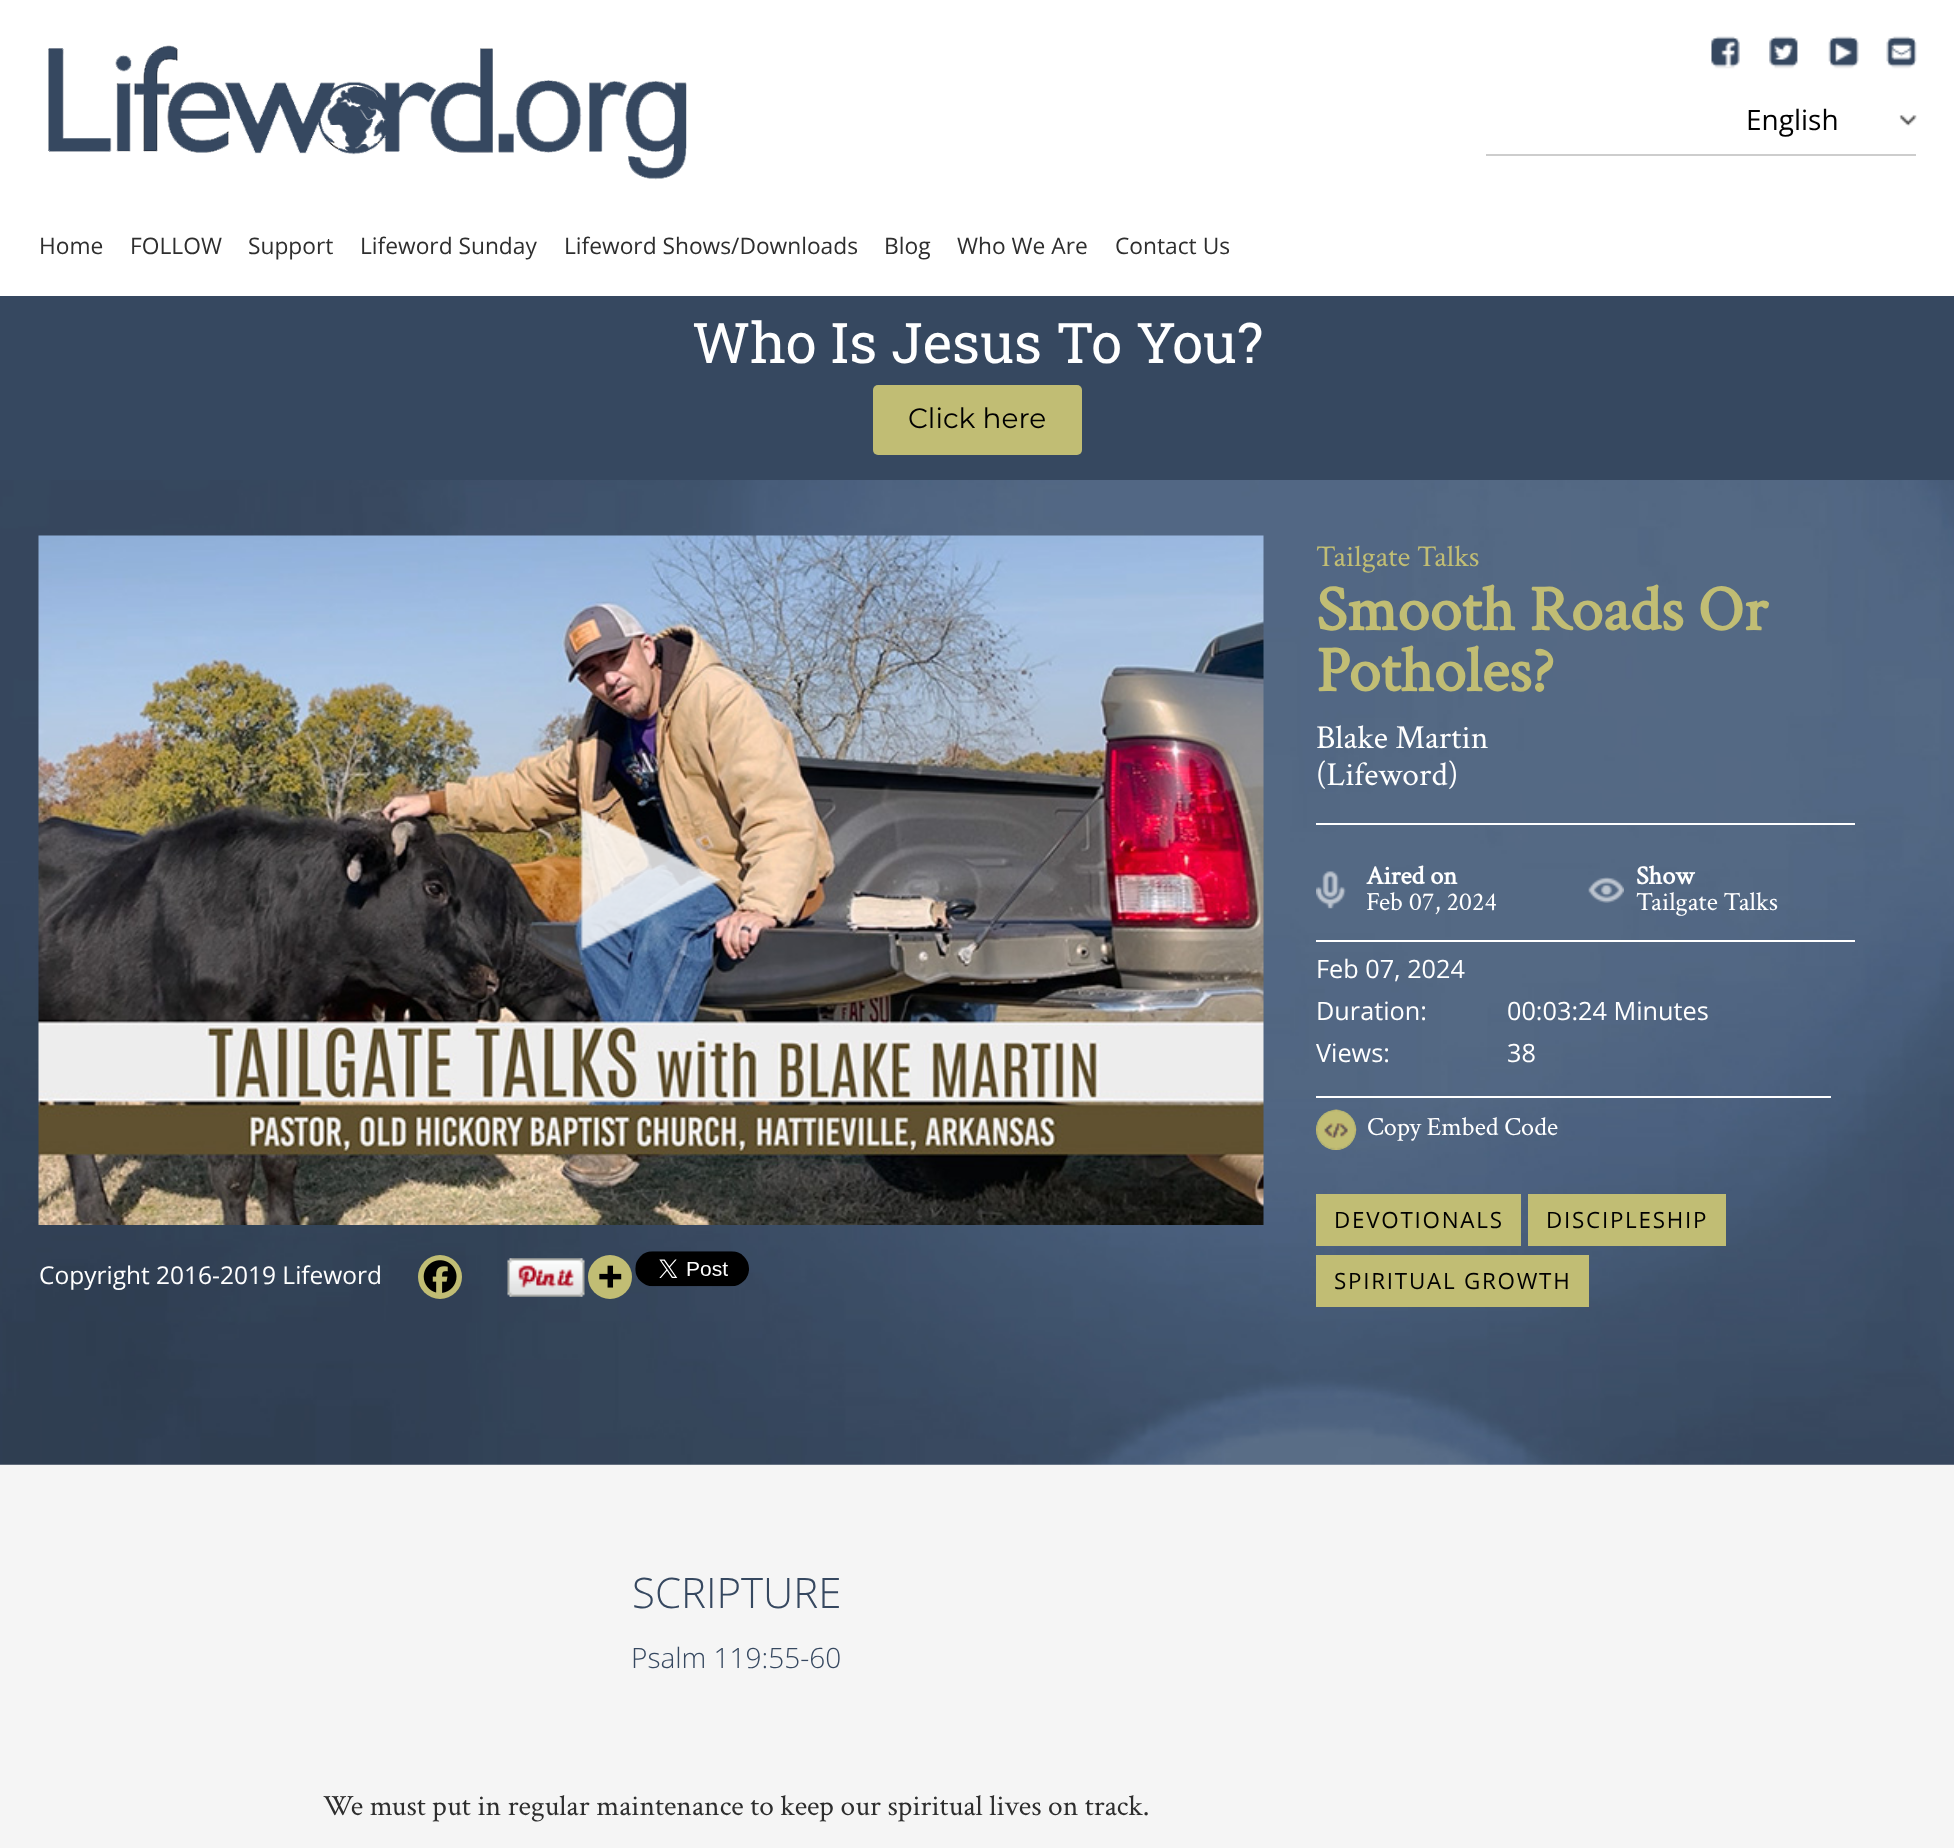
async function draw(canvas) {
	canvas.width = 1954;
	canvas.height = 1848;
	const c = canvas.getContext('2d');
	c.miterLimit = 4;
	c.fontKerning = 'normal';
	async function loadImage(src) {
		const img = new Image();
		img.src = src;
		await img.decode();
		return img;
	}

	c.fillStyle = '#fff';
	c.fillRect(0, 0, 1954, 1848);
	c.drawImage(await loadImage('img1.png'), 1711, 36, 29, 33);
	c.drawImage(await loadImage('img2.png'), 1769, 36, 29, 33);
	c.drawImage(await loadImage('img3.png'), 1828, 36, 31, 33);
	c.drawImage(await loadImage('img4.png'), 1886, 36, 31, 33);
	c.drawImage(await loadImage('img5.png'), 1899, 115, 18, 11);
	c.fillStyle = '#cdcdcd';
	c.fillRect(1486, 154, 430, 2);
	c.font = '28px Open Sans';
	c.fillStyle = '#000';
	c.fillText('English', 1746, 130);
	c.drawImage(await loadImage('img6.png'), 48, 45, 639, 135);
	c.font = '22.75px Open Sans';
	c.fillStyle = '#2e2e2e';
	for (const [text, x, y] of [
		['Home', 39, 254],
		['FOLLOW', 130, 254],
		['Support', 248, 254],
		['Lifeword Sunday', 360, 254],
		['Lifeword Shows/Downloads', 564, 254],
		['Blog', 884, 254],
		['Who We Are', 957, 254],
		['Contact Us', 1115, 254],
	]) {
		c.fillText(text, x, y);
	}
	c.fillStyle = '#364860';
	c.fillRect(0, 296, 1954, 184);
	c.font = '56px Roboto Slab';
	c.fillStyle = '#fff';
	c.fillText('Who Is Jesus To You?', 692, 363);
	c.fillStyle = '#c1bd74';
	c.beginPath();
	c.roundRect(873, 385, 209, 70, 5);
	c.fill();
	c.font = '100 28px Montserrat';
	c.fillStyle = '#000';
	c.fillText('Click here', 908, 428);
	c.fillStyle = '#f5f5f5';
	c.fillRect(0, 1464, 1954, 384);
	c.drawImage(await loadImage('img7.png'), 0, 480, 1954, 985);
	c.drawImage(await loadImage('img8.png'), 38, 535, 1226, 690);
	c.drawImage(await loadImage('img9.png'), 579, 808, 144, 143);
	c.font = '24.5px Open Sans';
	c.fillStyle = '#fff';
	c.fillText('Copyright 2016-2019 Lifeword', 39, 1284);
	c.fillStyle = '#c1bd74';
	c.beginPath();
	c.arc(440, 1277, 22, 0, 2 * Math.PI);
	c.fill();
	c.drawImage(await loadImage('img10.png'), 423, 1260, 34, 33);
	c.drawImage(await loadImage('img11.png'), 507, 1258, 78, 39);
	c.beginPath();
	c.arc(610, 1277, 22, 0, 2 * Math.PI);
	c.fill();
	c.drawImage(await loadImage('img12.png'), 599, 1265, 23, 23);
	c.drawImage(await loadImage('img13.png'), 635, 1251, 114, 36);
	c.font = '30.25px Crimson Text';
	c.fillText('Tailgate Talks', 1316, 566);
	c.font = 'bold 64.5px Crimson Text';
	c.fillText('Smooth Roads Or', 1316, 630);
	c.fillText('Potholes?', 1316, 691);
	c.font = '33.5px Crimson Text';
	c.fillStyle = '#fff';
	c.fillText('Blake Martin', 1316, 748);
	c.fillText('(Lifeword)', 1316, 785);
	c.fillRect(1316, 823, 539, 2);
	c.fillRect(1316, 940, 539, 2);
	c.drawImage(await loadImage('img14.png'), 1316, 871, 30, 38);
	c.font = 'bold 26.25px Crimson Text';
	c.fillText('Aired on', 1366, 884);
	c.font = '26.25px Crimson Text';
	c.fillText('Feb 07, 2024', 1366, 910);
	c.drawImage(await loadImage('img15.png'), 1588, 877, 36, 26);
	c.font = 'bold 26.25px Crimson Text';
	c.fillText('Show', 1636, 884);
	c.font = '26.25px Crimson Text';
	c.fillText('Tailgate Talks', 1636, 910);
	c.font = '25.25px Open Sans';
	for (const [text, x, y] of [
		['Feb 07, 2024', 1316, 978],
		['Duration:', 1316, 1020],
		['00:03:24 Minutes', 1507, 1020],
		['Views:', 1316, 1062],
		['38', 1507, 1062],
	]) {
		c.fillText(text, x, y);
	}
	c.fillRect(1316, 1096, 515, 2);
	c.fillStyle = '#c1bd74';
	c.beginPath();
	c.arc(1336, 1130, 20, 0, 2 * Math.PI);
	c.fill();
	c.drawImage(await loadImage('img16.png'), 1316, 1109, 41, 41);
	c.font = '26.25px Crimson Text';
	c.fillStyle = '#fff';
	c.fillText('Copy Embed Code', 1367, 1135);
	c.fillStyle = '#c1bd74';
	c.fillRect(1316, 1194, 205, 52);
	c.letterSpacing = '1.75px';
	c.font = '22.4px Open Sans';
	c.fillStyle = '#000';
	c.fillText('DEVOTIONALS', 1334, 1228);
	c.fillStyle = '#c1bd74';
	c.fillRect(1528, 1194, 198, 52);
	c.fillStyle = '#000';
	c.fillText('DISCIPLESHIP', 1546, 1228);
	c.fillStyle = '#c1bd74';
	c.fillRect(1316, 1255, 273, 52);
	c.fillStyle = '#000';
	c.fillText('SPIRITUAL GROWTH', 1334, 1289);
	c.letterSpacing = '0px';
	c.font = '300 42px Open Sans';
	c.fillStyle = '#364860';
	c.fillText('SCRIPTURE', 632, 1608);
	c.font = '300 28px Open Sans';
	c.fillText('Psalm 119:55-60', 631, 1668);
	c.font = '29.4px Crimson Text';
	c.fillStyle = '#2e2e2e';
	c.fillText('We must put in regular maintenance to keep our spiritual lives on track.', 323, 1815);
}

draw(document.querySelector('canvas'));
